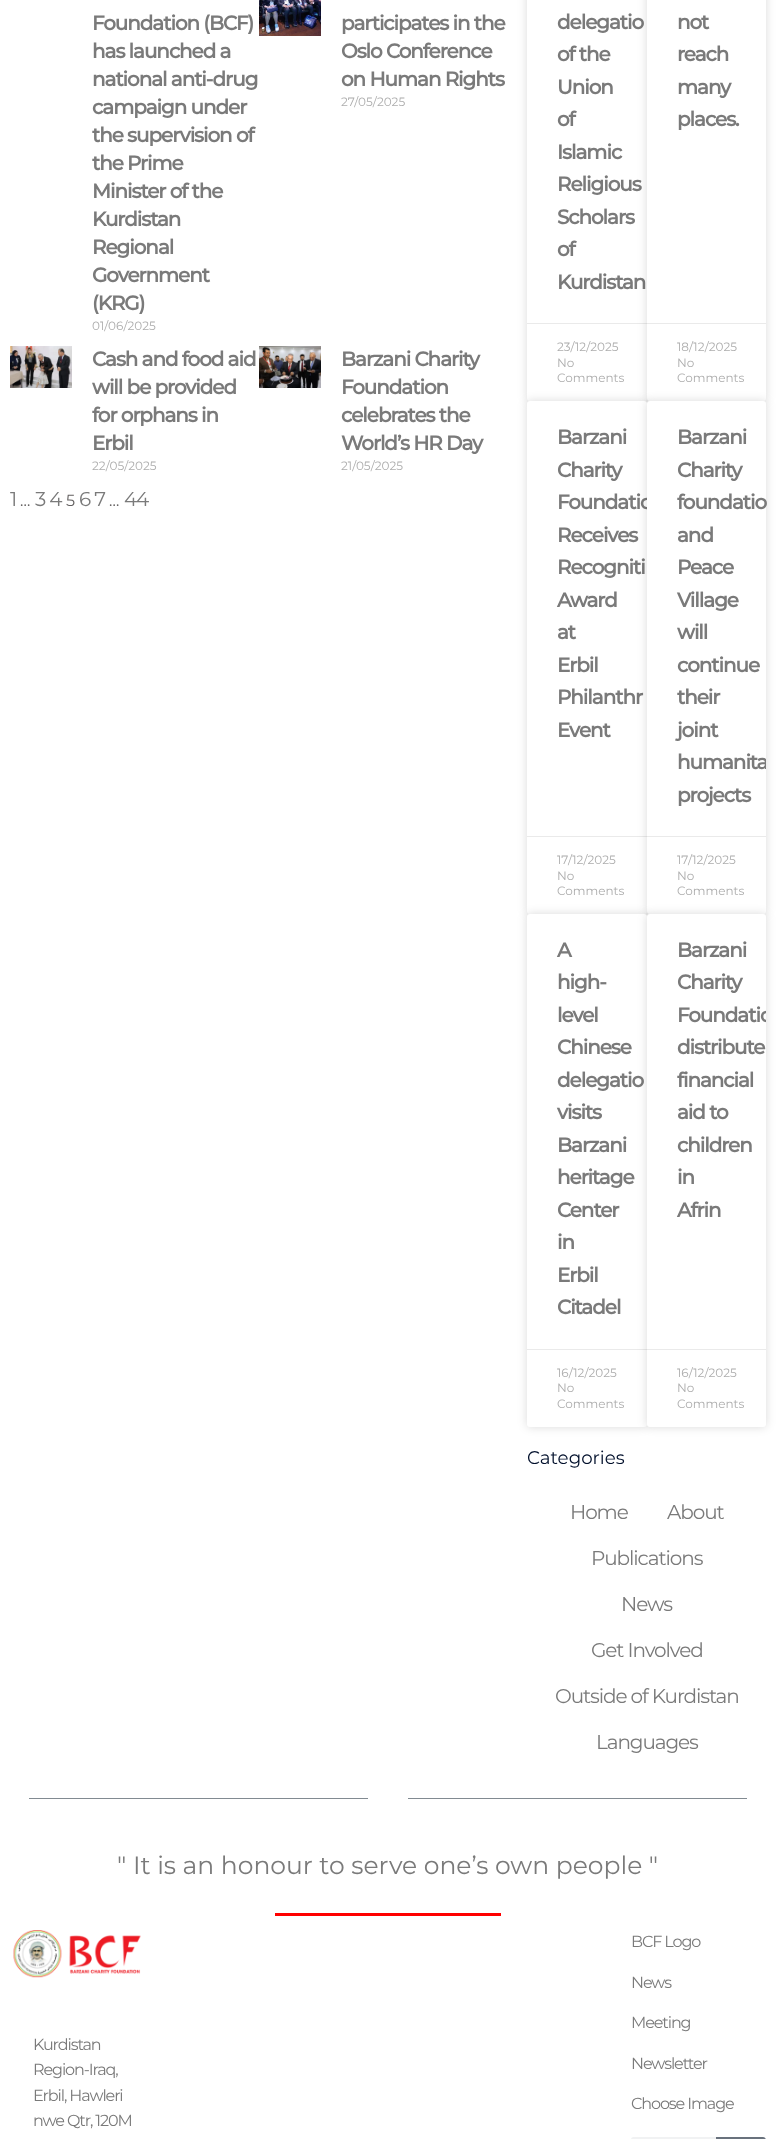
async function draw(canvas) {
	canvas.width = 776;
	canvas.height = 2139;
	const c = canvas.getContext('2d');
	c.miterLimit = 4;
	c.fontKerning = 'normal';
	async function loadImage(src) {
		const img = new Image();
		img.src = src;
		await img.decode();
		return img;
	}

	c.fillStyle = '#fff';
	c.fillRect(0, 0, 776, 2139);
	c.letterSpacing = '-1.1px';
	c.font = 'bold 20px Montserrat';
	c.fillStyle = '#7a7a7a';
	for (const [text, x, y] of [
		['Foundation (BCF)', 92, 30],
		['has launched a', 92, 58],
		['national anti-drug', 92, 86],
		['campaign under', 92, 114],
		['the supervision of', 92, 142],
		['the Prime', 92, 170],
		['Minister of the', 92, 198],
		['Kurdistan', 92, 226],
		['Regional', 92, 254],
		['Government', 92, 282],
		['(KRG)', 92, 310],
	]) {
		c.fillText(text, x, y);
	}
	c.letterSpacing = '0px';
	c.font = '12px Montserrat';
	c.fillStyle = '#adadad';
	c.fillText('01/06/2025', 92, 330);
	c.drawImage(await loadImage('img1.png'), 259, 0, 62, 36);
	c.letterSpacing = '-1.1px';
	c.font = 'bold 20px Montserrat';
	c.fillStyle = '#7a7a7a';
	for (const [text, x, y] of [
		['participates in the', 341, 30],
		['Oslo Conference', 341, 58],
		['on Human Rights', 341, 86],
	]) {
		c.fillText(text, x, y);
	}
	c.letterSpacing = '0px';
	c.font = '12px Montserrat';
	c.fillStyle = '#adadad';
	c.fillText('27/05/2025', 341, 106);
	c.drawImage(await loadImage('img2.png'), 10, 346, 62, 42);
	c.letterSpacing = '-1.1px';
	c.font = 'bold 20px Montserrat';
	c.fillStyle = '#7a7a7a';
	for (const [text, x, y] of [
		['Cash and food aid', 92, 366],
		['will be provided', 92, 394],
		['for orphans in', 92, 422],
		['Erbil', 92, 450],
	]) {
		c.fillText(text, x, y);
	}
	c.letterSpacing = '0px';
	c.font = '12px Montserrat';
	c.fillStyle = '#adadad';
	c.fillText('22/05/2025', 92, 470);
	c.drawImage(await loadImage('img3.png'), 259, 346, 62, 42);
	c.letterSpacing = '-1.1px';
	c.font = 'bold 20px Montserrat';
	c.fillStyle = '#7a7a7a';
	for (const [text, x, y] of [
		['Barzani Charity', 341, 366],
		['Foundation', 341, 394],
		['celebrates the', 341, 422],
		['World’s HR Day', 341, 450],
	]) {
		c.fillText(text, x, y);
	}
	c.letterSpacing = '0px';
	c.font = '12px Montserrat';
	c.fillStyle = '#adadad';
	c.fillText('21/05/2025', 341, 470);
	c.letterSpacing = '-1.1px';
	c.font = '20px Montserrat';
	c.fillStyle = '#7a7a7a';
	c.fillText('1', 10, 506);
	c.letterSpacing = '0px';
	c.font = '16px Montserrat';
	c.fillStyle = '#625f5f';
	c.fillText('…', 20, 506);
	c.letterSpacing = '-1.1px';
	c.font = '20px Montserrat';
	c.fillStyle = '#7a7a7a';
	c.fillText('3 4', 35, 506);
	c.letterSpacing = '0px';
	c.font = '16px Montserrat';
	c.fillStyle = '#625f5f';
	c.fillText('5', 66, 506);
	c.letterSpacing = '-1.1px';
	c.font = '20px Montserrat';
	c.fillStyle = '#7a7a7a';
	c.fillText('6 7', 79, 506);
	c.letterSpacing = '0px';
	c.font = '16px Montserrat';
	c.fillStyle = '#625f5f';
	c.fillText('…', 109, 506);
	c.letterSpacing = '-1.1px';
	c.font = '20px Montserrat';
	c.fillStyle = '#7a7a7a';
	c.fillText('44', 124, 506);
	c.fillStyle = '#00000026';
	c.filter = 'blur(5px)';
	c.beginPath();
	c.roundRect(527, -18, 120, 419, 3);
	c.fill();
	c.filter = 'none';
	c.fillStyle = '#fff';
	c.beginPath();
	c.roundRect(527, -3, 120, 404, 3);
	c.fill();
	c.font = 'bold 20px Montserrat';
	c.fillStyle = '#7a7a7a';
	for (const [text, x, y] of [
		['delegatio', 557, 29],
		['of the', 557, 61],
		['Union', 557, 94],
		['of', 557, 126],
		['Islamic', 557, 159],
		['Religious', 557, 191],
		['Scholars', 557, 224],
		['of', 557, 256],
		['Kurdistan', 557, 289],
	]) {
		c.fillText(text, x, y);
	}
	c.fillStyle = '#eaeaea';
	c.fillRect(527, 323, 120, 1);
	c.letterSpacing = '0px';
	c.font = '12px Montserrat';
	c.fillStyle = '#adadad';
	for (const [text, x, y] of [
		['23/12/2025', 557, 351],
		['No', 557, 367],
		['Comments', 557, 382],
	]) {
		c.fillText(text, x, y);
	}
	c.fillStyle = '#00000026';
	c.filter = 'blur(5px)';
	c.beginPath();
	c.roundRect(647, -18, 119, 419, 3);
	c.fill();
	c.filter = 'none';
	c.fillStyle = '#fff';
	c.beginPath();
	c.roundRect(647, -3, 119, 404, 3);
	c.fill();
	c.letterSpacing = '-1.1px';
	c.font = 'bold 20px Montserrat';
	c.fillStyle = '#7a7a7a';
	for (const [text, x, y] of [
		['not', 677, 29],
		['reach', 677, 61],
		['many', 677, 94],
		['places.', 677, 126],
	]) {
		c.fillText(text, x, y);
	}
	c.fillStyle = '#eaeaea';
	c.fillRect(647, 323, 119, 1);
	c.letterSpacing = '0px';
	c.font = '12px Montserrat';
	c.fillStyle = '#adadad';
	for (const [text, x, y] of [
		['18/12/2025', 677, 351],
		['No', 677, 367],
		['Comments', 677, 382],
	]) {
		c.fillText(text, x, y);
	}
	c.fillStyle = '#00000026';
	c.filter = 'blur(5px)';
	c.beginPath();
	c.roundRect(527, 401, 120, 513, 3);
	c.fill();
	c.filter = 'none';
	c.fillStyle = '#fff';
	c.beginPath();
	c.roundRect(527, 401, 120, 513, 3);
	c.fill();
	c.letterSpacing = '-1.1px';
	c.font = 'bold 20px Montserrat';
	c.fillStyle = '#7a7a7a';
	for (const [text, x, y] of [
		['Barzani', 557, 444],
		['Charity', 557, 477],
		['Foundatio', 557, 509],
		['Receives', 557, 542],
		['Recogniti', 557, 574],
		['Award', 557, 607],
		['at', 557, 639],
		['Erbil', 557, 672],
		['Philanthr', 557, 704],
		['Event', 557, 737],
	]) {
		c.fillText(text, x, y);
	}
	c.fillStyle = '#eaeaea';
	c.fillRect(527, 836, 120, 1);
	c.letterSpacing = '0px';
	c.font = '12px Montserrat';
	c.fillStyle = '#adadad';
	for (const [text, x, y] of [
		['17/12/2025', 557, 864],
		['No', 557, 880],
		['Comments', 557, 895],
	]) {
		c.fillText(text, x, y);
	}
	c.fillStyle = '#00000026';
	c.filter = 'blur(5px)';
	c.beginPath();
	c.roundRect(647, 401, 119, 513, 3);
	c.fill();
	c.filter = 'none';
	c.fillStyle = '#fff';
	c.beginPath();
	c.roundRect(647, 401, 119, 513, 3);
	c.fill();
	c.letterSpacing = '-1.1px';
	c.font = 'bold 20px Montserrat';
	c.fillStyle = '#7a7a7a';
	for (const [text, x, y] of [
		['Barzani', 677, 444],
		['Charity', 677, 477],
		['foundatio', 677, 509],
		['and', 677, 542],
		['Peace', 677, 574],
		['Village', 677, 607],
		['will', 677, 639],
		['continue', 677, 672],
		['their', 677, 704],
		['joint', 677, 737],
	]) {
		c.fillText(text, x, y);
	}
	c.save();
	c.beginPath();
	c.roundRect(647, 401, 119, 513, 3);
	c.clip();
	c.fillText('humanita', 677, 769);
	c.restore();
	c.fillText('projects', 677, 802);
	c.fillStyle = '#eaeaea';
	c.fillRect(647, 836, 119, 1);
	c.letterSpacing = '0px';
	c.font = '12px Montserrat';
	c.fillStyle = '#adadad';
	for (const [text, x, y] of [
		['17/12/2025', 677, 864],
		['No', 677, 880],
		['Comments', 677, 895],
	]) {
		c.fillText(text, x, y);
	}
	c.fillStyle = '#00000026';
	c.filter = 'blur(5px)';
	c.beginPath();
	c.roundRect(527, 914, 120, 513, 3);
	c.fill();
	c.filter = 'none';
	c.fillStyle = '#fff';
	c.beginPath();
	c.roundRect(527, 914, 120, 513, 3);
	c.fill();
	c.letterSpacing = '-1.1px';
	c.font = 'bold 20px Montserrat';
	c.fillStyle = '#7a7a7a';
	for (const [text, x, y] of [
		['A', 557, 957],
		['high-', 557, 989],
		['level', 557, 1022],
		['Chinese', 557, 1054],
		['delegatio', 557, 1087],
		['visits', 557, 1119],
		['Barzani', 557, 1152],
		['heritage', 557, 1184],
		['Center', 557, 1217],
		['in', 557, 1249],
		['Erbil', 557, 1282],
		['Citadel', 557, 1314],
	]) {
		c.fillText(text, x, y);
	}
	c.fillStyle = '#eaeaea';
	c.fillRect(527, 1349, 120, 1);
	c.letterSpacing = '0px';
	c.font = '12px Montserrat';
	c.fillStyle = '#adadad';
	for (const [text, x, y] of [
		['16/12/2025', 557, 1377],
		['No', 557, 1392],
		['Comments', 557, 1408],
	]) {
		c.fillText(text, x, y);
	}
	c.fillStyle = '#00000026';
	c.filter = 'blur(5px)';
	c.beginPath();
	c.roundRect(647, 914, 119, 513, 3);
	c.fill();
	c.filter = 'none';
	c.fillStyle = '#fff';
	c.beginPath();
	c.roundRect(647, 914, 119, 513, 3);
	c.fill();
	c.letterSpacing = '-1.1px';
	c.font = 'bold 20px Montserrat';
	c.fillStyle = '#7a7a7a';
	c.fillText('Barzani', 677, 957);
	c.fillText('Charity', 677, 989);
	c.save();
	c.beginPath();
	c.roundRect(647, 914, 119, 513, 3);
	c.clip();
	c.fillText('Foundatio', 677, 1022);
	c.restore();
	for (const [text, x, y] of [
		['distribute', 677, 1054],
		['financial', 677, 1087],
		['aid to', 677, 1119],
		['children', 677, 1152],
		['in', 677, 1184],
		['Afrin', 677, 1217],
	]) {
		c.fillText(text, x, y);
	}
	c.fillStyle = '#eaeaea';
	c.fillRect(647, 1349, 119, 1);
	c.letterSpacing = '0px';
	c.font = '12px Montserrat';
	c.fillStyle = '#adadad';
	for (const [text, x, y] of [
		['16/12/2025', 677, 1377],
		['No', 677, 1392],
		['Comments', 677, 1408],
	]) {
		c.fillText(text, x, y);
	}
	c.font = '18.25px Montserrat';
	c.fillStyle = '#000f2b';
	c.fillText('Categories', 527, 1464);
	c.letterSpacing = '-1.1px';
	c.font = '20px Montserrat';
	c.fillStyle = '#7a7a7a';
	for (const [text, x, y] of [
		['Home', 570, 1519],
		['About', 667, 1519],
		['Publications', 591, 1565],
		['News', 621, 1611],
		['Get Involved', 591, 1657],
		['Outside of Kurdistan', 555, 1703],
		['Languages', 596, 1749],
	]) {
		c.fillText(text, x, y);
	}
	c.fillStyle = '#818a91';
	c.fillRect(29, 1798, 339, 1);
	c.fillRect(408, 1798, 339, 1);
	c.letterSpacing = '0px';
	c.font = '25px Montserrat';
	c.fillStyle = '#7a7a7a';
	c.fillText('" It is an honour to serve one’s own people "', 117, 1874);
	c.fillStyle = '#f00';
	c.fillRect(275, 1913, 226, 3);
	c.drawImage(await loadImage('img4.png'), 13, 1930, 128, 48);
	c.letterSpacing = '-1.1px';
	c.font = '16px Montserrat';
	c.fillStyle = '#7a7a7a';
	for (const [text, x, y] of [
		['Kurdistan', 33, 2050],
		['Region-Iraq,', 33, 2075],
		['Erbil, Hawleri', 33, 2101],
		['nwe Qtr, 120M', 33, 2126],
		['BCF Logo', 631, 1947],
		['News', 631, 1988],
		['Meeting', 631, 2028],
		['Newsletter', 631, 2069],
		['Choose Image', 631, 2109],
	]) {
		c.fillText(text, x, y);
	}
	c.fillStyle = '#f1f2f3';
	c.beginPath();
	c.roundRect(631, 2137, 135, 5, 3);
	c.fill();
	c.fillStyle = '#69727d';
	c.beginPath();
	c.moveTo(716, 2137);
	c.lineTo(763, 2137);
	c.bezierCurveTo(764.5, 2137, 766, 2138.5, 766, 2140);
	c.lineTo(766, 2139);
	c.bezierCurveTo(766, 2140.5, 764.5, 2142, 763, 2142);
	c.lineTo(716, 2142);
	c.closePath();
	c.fill();
}

draw(document.querySelector('canvas'));
